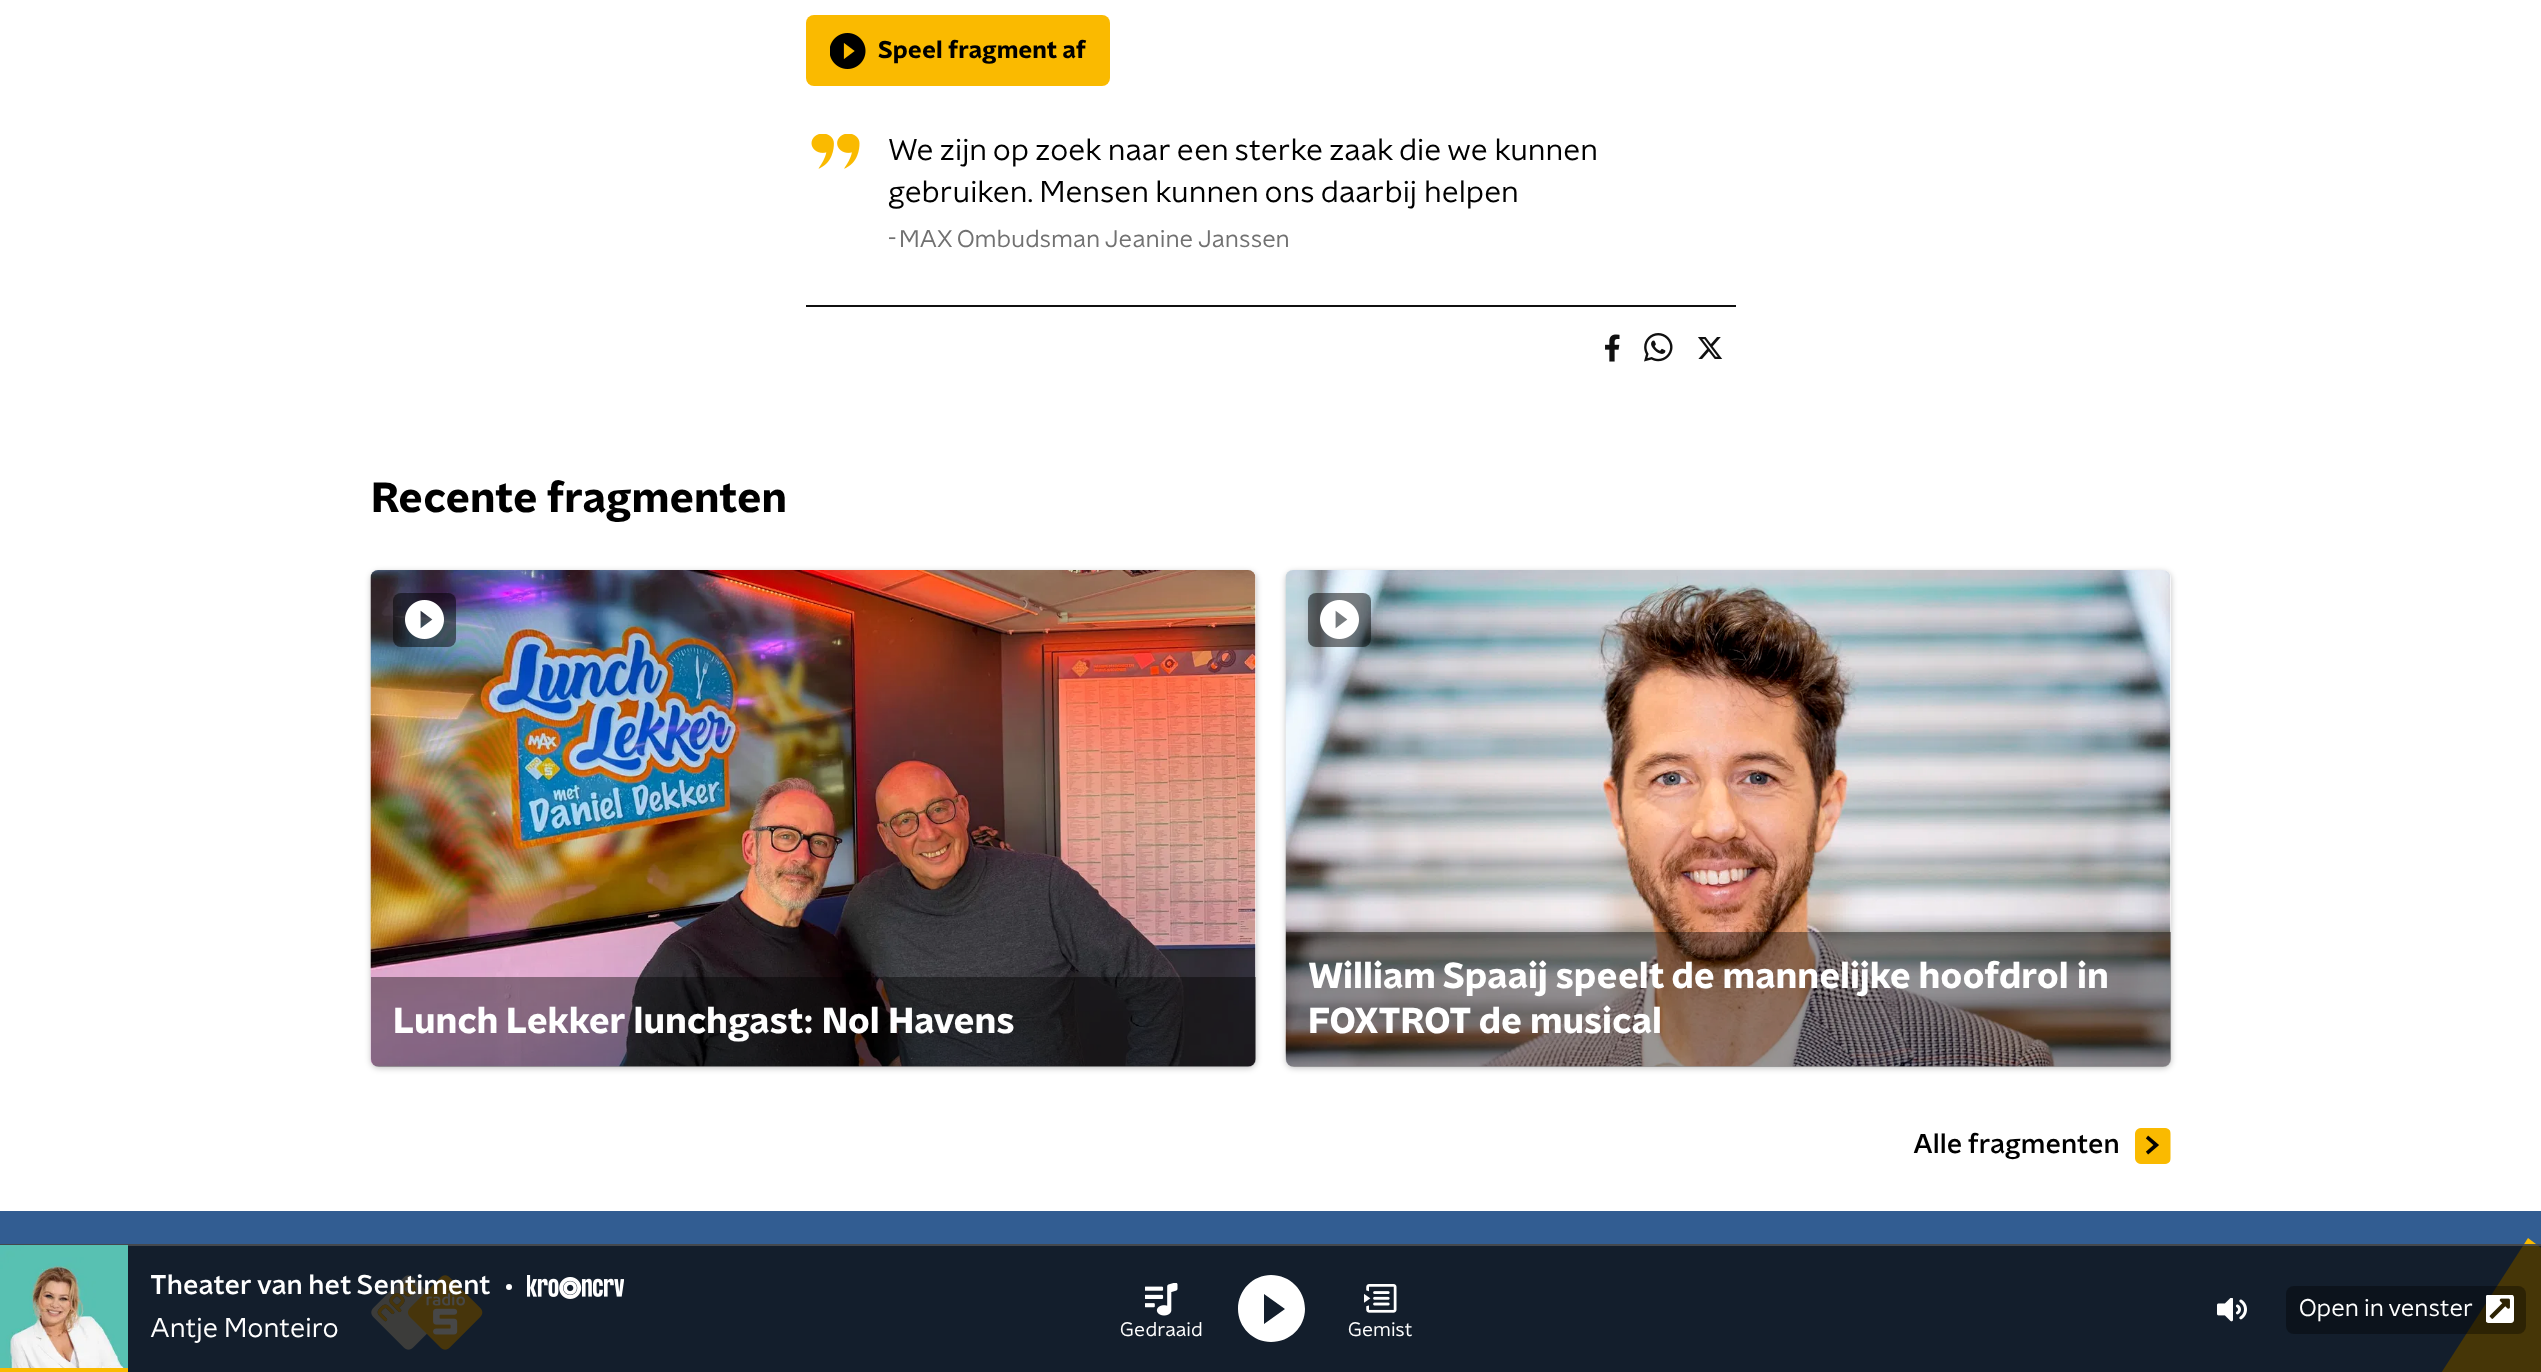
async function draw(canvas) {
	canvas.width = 2541;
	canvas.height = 1372;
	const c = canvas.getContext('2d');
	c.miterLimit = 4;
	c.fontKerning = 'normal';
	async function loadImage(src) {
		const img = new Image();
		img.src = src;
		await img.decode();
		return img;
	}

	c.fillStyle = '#fff';
	c.fillRect(0, 0, 2541, 1372);
	c.fillStyle = '#faba00';
	c.beginPath();
	c.roundRect(806, 15, 304, 71, 8);
	c.fill();
	c.drawImage(await loadImage('img1.png'), 830, 33, 36, 36);
	c.font = 'bold 24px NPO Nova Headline';
	c.fillStyle = '#000';
	c.fillText('Speel fragment af', 878, 58);
	c.drawImage(await loadImage('img2.png'), 811, 134, 49, 35);
	c.font = '30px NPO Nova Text';
	c.fillText('We zijn op zoek naar een sterke zaak die we kunnen', 888, 160);
	c.fillText('gebruiken. Mensen kunnen ons daarbij helpen', 888, 202);
	c.font = '24px NPO Nova Text';
	c.fillStyle = '#717171';
	c.fillText('-', 888, 247);
	c.fillText('MAX Ombudsman Jeanine Janssen', 899, 247);
	c.fillStyle = '#101010';
	c.fillRect(806, 305, 930, 2);
	c.drawImage(await loadImage('img3.png'), 1605, 334, 15, 28);
	c.drawImage(await loadImage('img4.png'), 1644, 333, 29, 29);
	c.drawImage(await loadImage('img5.png'), 1698, 337, 25, 22);
	c.font = 'bold 42px NPO Nova Headline';
	c.fillStyle = '#000';
	c.fillText('Recente fragmenten', 371, 512);
	c.fillStyle = '#00000040';
	c.filter = 'blur(3px)';
	c.beginPath();
	c.roundRect(371, 572, 885, 496, 8);
	c.fill();
	c.filter = 'none';
	c.fillStyle = '#fff';
	c.beginPath();
	c.roundRect(371, 570, 885, 497, 8);
	c.fill();
	c.drawImage(await loadImage('img6.png'), 370, 570, 886, 497);
	c.fillStyle = '#00000080';
	c.beginPath();
	c.roundRect(393, 593, 63, 54, 8);
	c.fill();
	c.drawImage(await loadImage('img7.png'), 405, 600, 39, 39);
	c.fillStyle = '#00000066';
	c.beginPath();
	c.roundRect(371, 977, 885, 90, [0, 0, 8, 8]);
	c.fill();
	c.font = 'bold 36px NPO Nova Headline';
	c.fillStyle = '#fff';
	c.fillText('Lunch Lekker lunchgast: Nol Havens', 393, 1033);
	c.fillStyle = '#00000040';
	c.filter = 'blur(3px)';
	c.beginPath();
	c.roundRect(1286, 572, 885, 496, 8);
	c.fill();
	c.filter = 'none';
	c.fillStyle = '#fff';
	c.beginPath();
	c.roundRect(1286, 570, 885, 497, 8);
	c.fill();
	c.drawImage(await loadImage('img8.png'), 1285, 570, 886, 497);
	c.fillStyle = '#00000080';
	c.beginPath();
	c.roundRect(1308, 593, 63, 54, 8);
	c.fill();
	c.drawImage(await loadImage('img9.png'), 1320, 600, 39, 39);
	c.fillStyle = '#00000066';
	c.beginPath();
	c.roundRect(1286, 932, 885, 135, [0, 0, 8, 8]);
	c.fill();
	c.wordSpacing = '-0.25px';
	c.fillStyle = '#fff';
	c.fillText('William Spaaij speelt de mannelijke hoofdrol in', 1308, 988);
	c.wordSpacing = '0px';
	c.fillText('FOXTROT de musical', 1308, 1033);
	c.font = '500 27px NPO Nova Text';
	c.fillStyle = '#000';
	c.fillText('Alle fragmenten', 1913, 1153);
	c.drawImage(await loadImage('img10.png'), 2135, 1128, 36, 36);
	c.fillStyle = '#325d92';
	c.fillRect(0, 1211, 2541, 161);
	c.drawImage(await loadImage('img11.png'), 371, 1275, 112, 75);
	c.fillStyle = '#faba00';
	c.beginPath();
	c.moveTo(2084, 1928);
	c.lineTo(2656, 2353);
	c.lineTo(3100, 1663);
	c.lineTo(2528, 1238);
	c.closePath();
	c.fill();
	c.fillStyle = '#090909bf';
	c.fillRect(0, 1244, 2541, 128);
	c.fillStyle = '#5f5f5fa6';
	c.fillRect(0, 1244, 2541, 2);
	c.drawImage(await loadImage('img12.png'), 0, 1245, 128, 123);
	c.fillStyle = '#faba00';
	c.fillRect(0, 1368, 128, 4);
	c.fillStyle = '#fff';
	c.fillText('Theater van het Sentiment', 150, 1294);
	c.beginPath();
	c.arc(509, 1287, 3, 0, 2 * Math.PI);
	c.fill();
	c.drawImage(await loadImage('img13.png'), 527, 1275, 97, 24);
	c.font = '27px NPO Nova Text';
	c.fillText('Antje Monteiro', 150, 1337);
	c.drawImage(await loadImage('img14.png'), 2217, 1298, 30, 24);
	c.fillStyle = '#00000059';
	c.beginPath();
	c.roundRect(2286, 1286, 240, 48, 8);
	c.fill();
	c.font = '24px NPO Nova Text';
	c.fillStyle = '#fff';
	c.fillText('Open in venster', 2299, 1316);
	c.drawImage(await loadImage('img15.png'), 2486, 1295, 28, 28);
	c.drawImage(await loadImage('img16.png'), 1145, 1283, 33, 33);
	c.font = '19.5px NPO Nova Text';
	c.fillText('Gedraaid', 1120, 1336);
	c.beginPath();
	c.moveTo(1271, 1275);
	c.bezierCurveTo(1253, 1275, 1238, 1290, 1238, 1309);
	c.bezierCurveTo(1238, 1327, 1253, 1342, 1271, 1342);
	c.bezierCurveTo(1290, 1342, 1305, 1327, 1305, 1309);
	c.bezierCurveTo(1305, 1290, 1290, 1275, 1271, 1275);
	c.closePath();
	c.moveTo(1264, 1324);
	c.lineTo(1264, 1294);
	c.lineTo(1285, 1309);
	c.closePath();
	c.fill();
	c.drawImage(await loadImage('img17.png'), 1364, 1284, 33, 29);
	c.fillText('Gemist', 1348, 1336);
}

draw(document.querySelector('canvas'));
